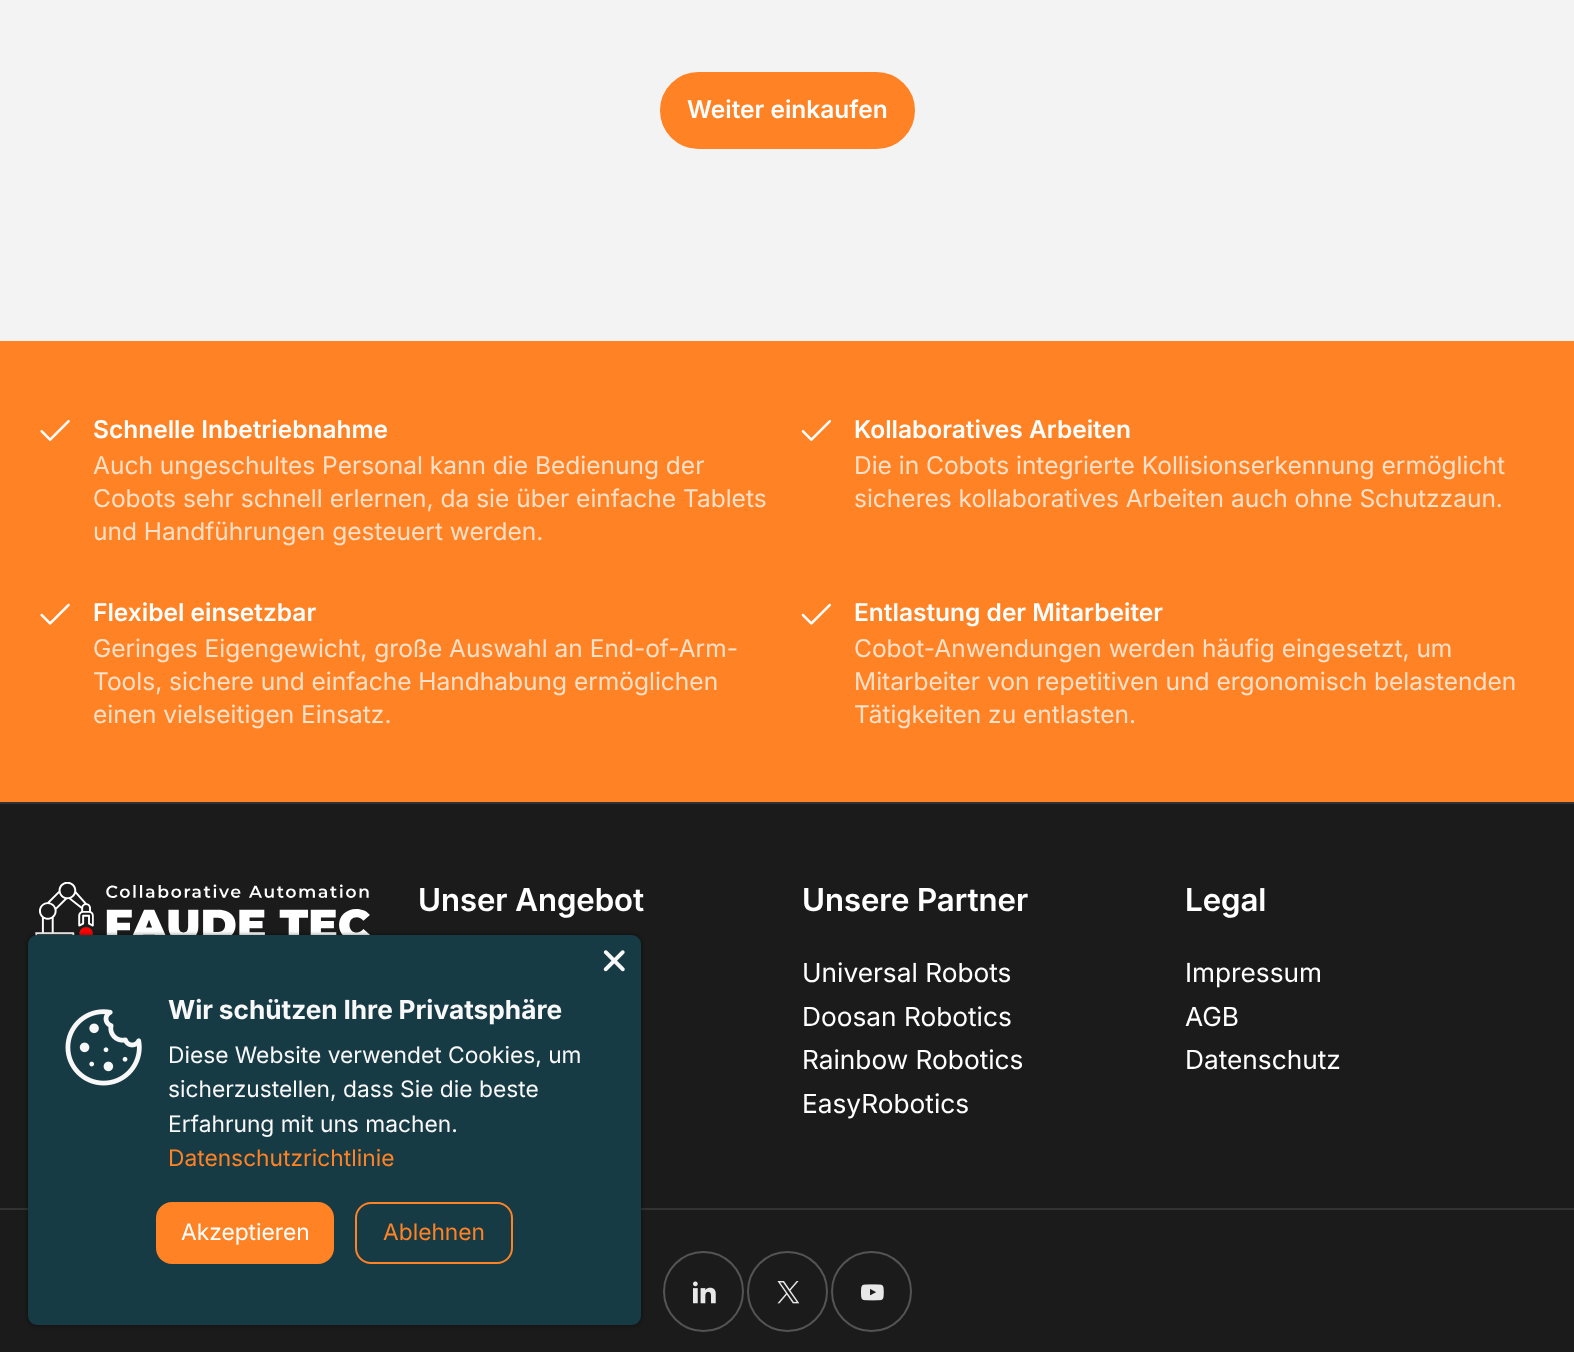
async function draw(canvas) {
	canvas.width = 1574;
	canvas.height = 1352;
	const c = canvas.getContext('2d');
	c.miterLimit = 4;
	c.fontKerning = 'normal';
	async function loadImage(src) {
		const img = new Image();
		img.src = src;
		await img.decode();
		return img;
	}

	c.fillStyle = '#f3f3f3';
	c.fillRect(0, 0, 1574, 1352);
	c.fillStyle = '#ff8225';
	c.beginPath();
	c.roundRect(661, 73, 253, 75, 37.5);
	c.fill();
	c.strokeStyle = '#ff8225';
	c.lineWidth = 2;
	c.stroke();
	c.font = '600 24.5px Inter';
	c.fillStyle = '#fff';
	c.fillText('Weiter einkaufen', 687, 118);
	c.fillStyle = '#ff8225';
	c.fillRect(0, 341, 1574, 461);
	c.drawImage(await loadImage('img1.png'), 40, 420, 30, 21);
	c.fillStyle = '#fff';
	c.fillText('Schnelle Inbetriebnahme', 93, 438);
	c.font = '24.5px Inter';
	c.fillStyle = '#ffe0c9';
	for (const [text, x, y] of [
		['Auch ungeschultes Personal kann die Bedienung der', 93, 474],
		['Cobots sehr schnell erlernen, da sie über einfache Tablets', 93, 507],
		['und Handführungen gesteuert werden.', 93, 540],
	]) {
		c.fillText(text, x, y);
	}
	c.drawImage(await loadImage('img2.png'), 801, 420, 30, 21);
	c.font = '600 24.5px Inter';
	c.fillStyle = '#fff';
	c.fillText('Kollaboratives Arbeiten', 854, 438);
	c.font = '24.5px Inter';
	c.fillStyle = '#ffe0c9';
	c.fillText('Die in Cobots integrierte Kollisionserkennung ermöglicht', 854, 474);
	c.fillText('sicheres kollaboratives Arbeiten auch ohne Schutzzaun.', 854, 507);
	c.drawImage(await loadImage('img3.png'), 40, 603, 30, 22);
	c.font = '600 24.5px Inter';
	c.fillStyle = '#fff';
	c.fillText('Flexibel einsetzbar', 93, 621);
	c.font = '24.5px Inter';
	c.fillStyle = '#ffe0c9';
	for (const [text, x, y] of [
		['Geringes Eigengewicht, große Auswahl an End-of-Arm-', 93, 657],
		['Tools, sichere und einfache Handhabung ermöglichen', 93, 690],
		['einen vielseitigen Einsatz.', 93, 723],
	]) {
		c.fillText(text, x, y);
	}
	c.drawImage(await loadImage('img4.png'), 801, 603, 30, 22);
	c.font = '600 24.5px Inter';
	c.fillStyle = '#fff';
	c.fillText('Entlastung der Mitarbeiter', 854, 621);
	c.font = '24.5px Inter';
	c.fillStyle = '#ffe0c9';
	for (const [text, x, y] of [
		['Cobot-Anwendungen werden häufig eingesetzt, um', 854, 657],
		['Mitarbeiter von repetitiven und ergonomisch belastenden', 854, 690],
		['Tätigkeiten zu entlasten.', 854, 723],
	]) {
		c.fillText(text, x, y);
	}
	c.fillStyle = '#1b1b1b';
	c.fillRect(0, 804, 1574, 404);
	c.fillStyle = '#323232';
	c.fillRect(0, 802, 1574, 2);
	c.drawImage(await loadImage('img5.png'), 35, 882, 335, 54);
	c.font = '600 31.5px "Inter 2"';
	c.fillStyle = '#fff';
	c.fillText('Unser Angebot', 418, 911);
	c.fillText('Unsere Partner', 802, 911);
	c.font = '26.25px Inter';
	for (const [text, x, y] of [
		['Universal Robots', 802, 982],
		['Doosan Robotics', 802, 1026],
		['Rainbow Robotics', 802, 1069],
		['EasyRobotics', 802, 1113],
	]) {
		c.fillText(text, x, y);
	}
	c.font = '600 31.5px "Inter 2"';
	c.fillText('Legal', 1185, 911);
	c.font = '26.25px Inter';
	for (const [text, x, y] of [
		['Impressum', 1185, 982],
		['AGB', 1185, 1026],
		['Datenschutz', 1185, 1069],
	]) {
		c.fillText(text, x, y);
	}
	c.fillStyle = '#1b1b1b';
	c.fillRect(0, 1210, 1574, 142);
	c.fillStyle = '#323232';
	c.fillRect(0, 1208, 1574, 2);
	c.beginPath();
	c.arc(703.5, 1291.5, 39.5, 0, 2 * Math.PI);
	c.strokeStyle = '#545454';
	c.stroke();
	c.drawImage(await loadImage('img6.png'), 693, 1281, 23, 23);
	c.beginPath();
	c.arc(787.5, 1291.5, 39.5, 0, 2 * Math.PI);
	c.stroke();
	c.drawImage(await loadImage('img7.png'), 777, 1281, 23, 23);
	c.beginPath();
	c.arc(871.5, 1291.5, 39.5, 0, 2 * Math.PI);
	c.stroke();
	c.drawImage(await loadImage('img8.png'), 861, 1284, 23, 17);
	c.fillStyle = '#00000080';
	c.filter = 'blur(2px)';
	c.beginPath();
	c.roundRect(28, 935, 613, 390, 9);
	c.fill();
	c.filter = 'none';
	c.fillStyle = '#173b45';
	c.beginPath();
	c.roundRect(28, 935, 613, 390, 9);
	c.fill();
	c.drawImage(await loadImage('img9.png'), 603, 950, 22, 22);
	c.drawImage(await loadImage('img10.png'), 65, 1009, 77, 77);
	c.wordSpacing = '-0.5px';
	c.font = 'bold 26.25px Inter';
	c.fillStyle = '#f8f8f8';
	c.fillText('Wir schützen Ihre Privatsphäre', 168, 1019);
	c.wordSpacing = '0px';
	c.font = '22.75px Inter';
	for (const [text, x, y] of [
		['Diese Website verwendet Cookies, um', 168, 1063],
		['sicherzustellen, dass Sie die beste', 168, 1097],
		['Erfahrung mit uns machen.', 168, 1132],
	]) {
		c.fillText(text, x, y);
	}
	c.fillStyle = '#ff8225';
	c.fillText('Datenschutzrichtlinie', 168, 1166);
	c.beginPath();
	c.roundRect(156, 1202, 178, 62, 16);
	c.fill();
	c.fillStyle = '#fff';
	c.fillText('Akzeptieren', 181, 1240);
	c.beginPath();
	c.roundRect(356, 1203, 156, 60, 15);
	c.strokeStyle = '#ff8225';
	c.stroke();
	c.fillStyle = '#ff8225';
	c.fillText('Ablehnen', 383, 1240);
}

draw(document.querySelector('canvas'));
